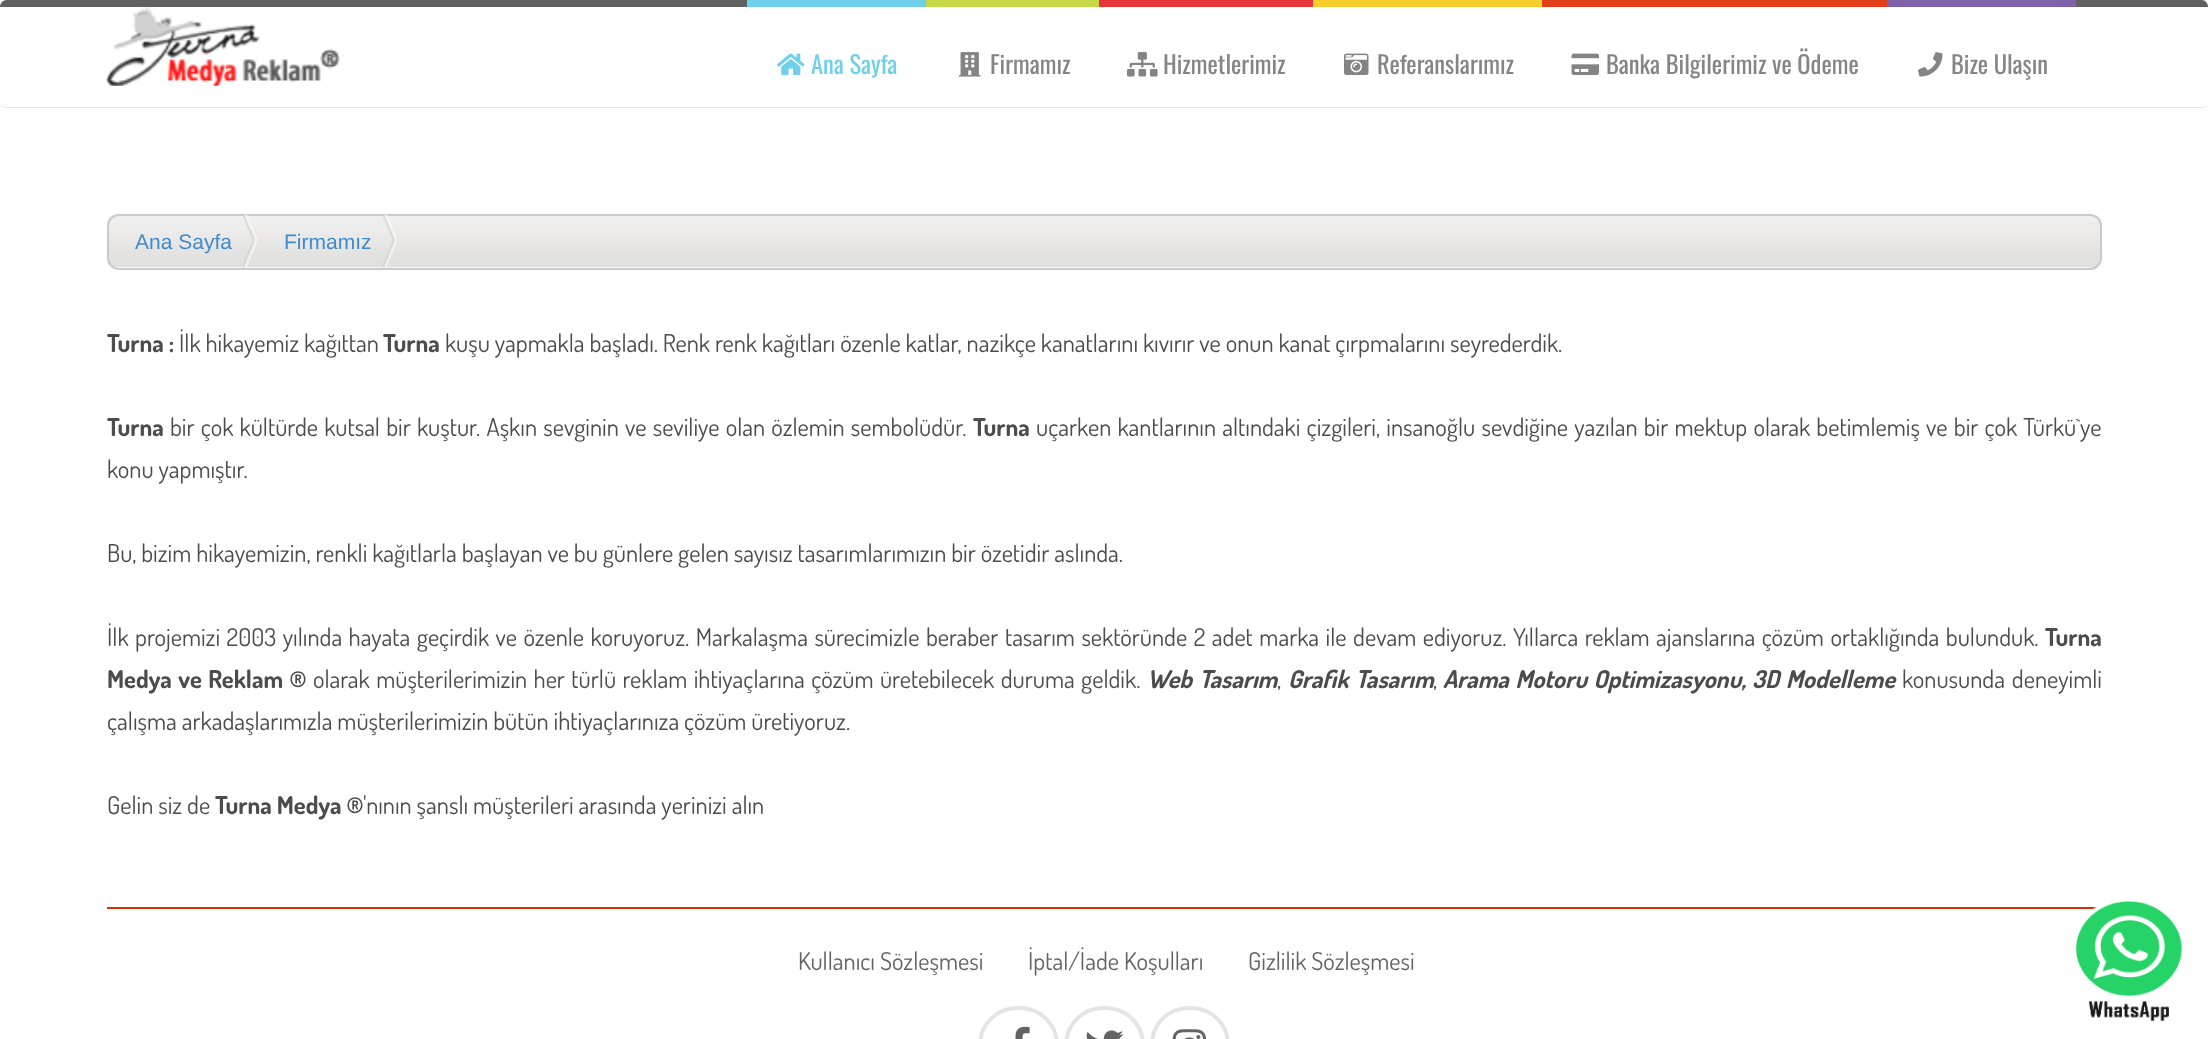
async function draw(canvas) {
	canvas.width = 2208;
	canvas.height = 1039;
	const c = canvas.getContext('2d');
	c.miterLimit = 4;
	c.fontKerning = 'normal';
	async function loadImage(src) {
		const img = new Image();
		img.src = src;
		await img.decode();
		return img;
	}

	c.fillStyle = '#fff';
	c.fillRect(0, 0, 2208, 1039);
	c.fillStyle = '#616161';
	c.beginPath();
	c.moveTo(7, 0);
	c.bezierCurveTo(3, 0, 0, 3, 0, 7);
	c.lineTo(2208, 7);
	c.bezierCurveTo(2208, 3, 2205, 0, 2202, 0);
	c.closePath();
	c.fill();
	c.fillStyle = '#e3e3e3e6';
	c.beginPath();
	c.moveTo(2202, 108);
	c.bezierCurveTo(2205, 108, 2208, 105, 2208, 102);
	c.bezierCurveTo(2208, 104, 2205, 107, 2202, 107);
	c.lineTo(7, 107);
	c.bezierCurveTo(3, 107, 0, 104, 0, 102);
	c.bezierCurveTo(0, 105, 3, 108, 7, 108);
	c.closePath();
	c.fill();
	c.drawImage(await loadImage('img1.png'), 106, 7, 234, 79);
	c.fillStyle = '#70cfea';
	c.fillRect(747, 0, 179, 7);
	c.drawImage(await loadImage('img2.png'), 777, 53, 28, 22);
	c.font = '24.5px Oswald';
	c.fillText('Ana Sayfa', 811, 74);
	c.fillStyle = '#c5d846';
	c.fillRect(926, 0, 173, 7);
	c.drawImage(await loadImage('img3.png'), 959, 52, 22, 25);
	c.fillStyle = '#858585';
	c.fillText('Firmamız', 990, 74);
	c.fillStyle = '#e5353b';
	c.fillRect(1099, 0, 214, 7);
	c.drawImage(await loadImage('img4.png'), 1127, 52, 31, 25);
	c.fillStyle = '#858585';
	c.fillText('Hizmetlerimiz', 1163, 74);
	c.fillStyle = '#f7ce2c';
	c.fillRect(1313, 0, 229, 7);
	c.drawImage(await loadImage('img5.png'), 1344, 53, 25, 22);
	c.fillStyle = '#858585';
	c.fillText('Referanslarımız', 1377, 74);
	c.fillStyle = '#e13f1a';
	c.fillRect(1542, 0, 345, 7);
	c.drawImage(await loadImage('img6.png'), 1571, 53, 29, 22);
	c.fillStyle = '#858585';
	c.fillText('Banka Bilgilerimiz ve Ödeme', 1606, 74);
	c.fillStyle = '#8062ab';
	c.fillRect(1887, 0, 189, 7);
	c.drawImage(await loadImage('img7.png'), 1918, 52, 25, 25);
	c.fillStyle = '#858585';
	c.fillText('Bize Ulaşın', 1951, 74);
	c.drawImage(await loadImage('img8.png'), 107, 214, 1995, 54);
	c.beginPath();
	c.roundRect(108, 215, 1993, 54, 11);
	c.strokeStyle = '#cacaca';
	c.lineWidth = 2;
	c.stroke();
	c.drawImage(await loadImage('img9.png'), 243, 214, 14, 54);
	c.font = '21px Liberation Sans';
	c.fillStyle = '#428bca';
	c.fillText('Ana Sayfa', 135, 249);
	c.drawImage(await loadImage('img9.png'), 383, 214, 14, 54);
	c.fillText('Firmamız', 284, 249);
	c.font = 'bold 24.5px Dosis';
	c.fillStyle = '#4c4c4c';
	c.fillText('Turna :', 107, 352);
	c.font = '24.5px Dosis';
	c.fillText('İlk hikayemiz kağıttan', 179, 352);
	c.font = 'bold 24.5px Dosis';
	c.fillText('Turna', 383, 352);
	c.font = '24.5px Dosis';
	c.fillText('kuşu yapmakla başladı. Renk renk kağıtları özenle katlar, nazikçe kanatlarını kıvırır ve onun kanat çırpmalarını seyrederdik.', 445, 352);
	c.font = 'bold 24.5px Dosis';
	c.fillText('Turna', 107, 436);
	c.wordSpacing = '1.3px';
	c.font = '24.5px Dosis';
	c.fillText('bir çok kültürde kutsal bir kuştur. Aşkın sevginin ve seviliye olan özlemin sembolüdür.', 170, 436);
	c.wordSpacing = '0px';
	c.font = 'bold 24.5px Dosis';
	c.fillText('Turna', 973, 436);
	c.wordSpacing = '1.3px';
	c.font = '24.5px Dosis';
	c.fillText('uçarken kantlarının altındaki çizgileri, insanoğlu sevdiğine yazılan bir mektup olarak betimlemiş ve bir çok Türkü`ye', 1036, 436);
	c.wordSpacing = '0px';
	c.fillText('konu yapmıştır.', 107, 478);
	c.fillText('Bu, bizim hikayemizin, renkli kağıtlarla başlayan ve bu günlere gelen sayısız tasarımlarımızın bir özetidir aslında.', 107, 562);
	c.wordSpacing = '1.6px';
	c.fillText('İlk projemizi 2003 yılında hayata geçirdik ve özenle koruyoruz. Markalaşma sürecimizle beraber tasarım sektöründe 2 adet marka ile devam ediyoruz. Yıllarca reklam ajanslarına çözüm ortaklığında bulunduk.', 107, 646);
	c.wordSpacing = '0px';
	c.font = 'bold 24.5px Dosis';
	c.fillText('Turna', 2045, 646);
	c.wordSpacing = '1.5px';
	c.fillText('Medya ve Reklam ®', 107, 688);
	c.font = '24.5px Dosis';
	c.fillText('olarak müşterilerimizin her türlü reklam ihtiyaçlarına çözüm üretebilecek duruma geldik.', 313, 688);
	c.wordSpacing = '2px';
	c.font = 'italic bold 24.5px Dosis';
	c.fillText('Web Tasarım', 1147, 688);
	c.wordSpacing = '0px';
	c.font = '24.5px Dosis';
	c.fillText(',', 1277, 688);
	c.wordSpacing = '2px';
	c.font = 'italic bold 24.5px Dosis';
	c.fillText('Grafik Tasarım', 1288, 688);
	c.wordSpacing = '0px';
	c.font = '24.5px Dosis';
	c.fillText(',', 1433, 688);
	c.wordSpacing = '1.5px';
	c.font = 'italic bold 24.5px Dosis';
	c.fillText('Arama Motoru Optimizasyonu, 3D Modelleme', 1443, 688);
	c.wordSpacing = '2px';
	c.font = '24.5px Dosis';
	c.fillText('konusunda deneyimli', 1902, 688);
	c.wordSpacing = '0px';
	c.fillText('çalışma arkadaşlarımızla müşterilerimizin bütün ihtiyaçlarınıza çözüm üretiyoruz.', 107, 730);
	c.fillText('Gelin siz de', 107, 814);
	c.font = 'bold 24.5px Dosis';
	c.fillText('Turna Medya ®', 215, 814);
	c.font = '24.5px Dosis';
	c.fillText('\'nının şanslı müşterileri arasında yerinizi alın', 363, 814);
	c.fillStyle = '#de3008';
	c.fillRect(107, 907, 1995, 2);
	c.fillStyle = '#646464';
	for (const [text, x, y] of [
		['Kullanıcı Sözleşmesi', 798, 970],
		['İptal/İade Koşulları', 1028, 970],
		['Gizlilik Sözleşmesi', 1248, 970],
	]) {
		c.fillText(text, x, y);
	}
	c.beginPath();
	c.roundRect(980, 1008, 77, 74, 38.5);
	c.strokeStyle = '#e4e4e4';
	c.lineWidth = 4;
	c.stroke();
	c.drawImage(await loadImage('img10.png'), 1015, 1026, 15, 13);
	c.beginPath();
	c.roundRect(1066, 1008, 77, 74, 38.5);
	c.stroke();
	c.drawImage(await loadImage('img11.png'), 1086, 1030, 38, 9);
	c.beginPath();
	c.roundRect(1152, 1008, 76, 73, 38);
	c.stroke();
	c.drawImage(await loadImage('img12.png'), 1172, 1029, 35, 10);
	c.drawImage(await loadImage('img13.png'), 2076, 900, 106, 122);
}

draw(document.querySelector('canvas'));
